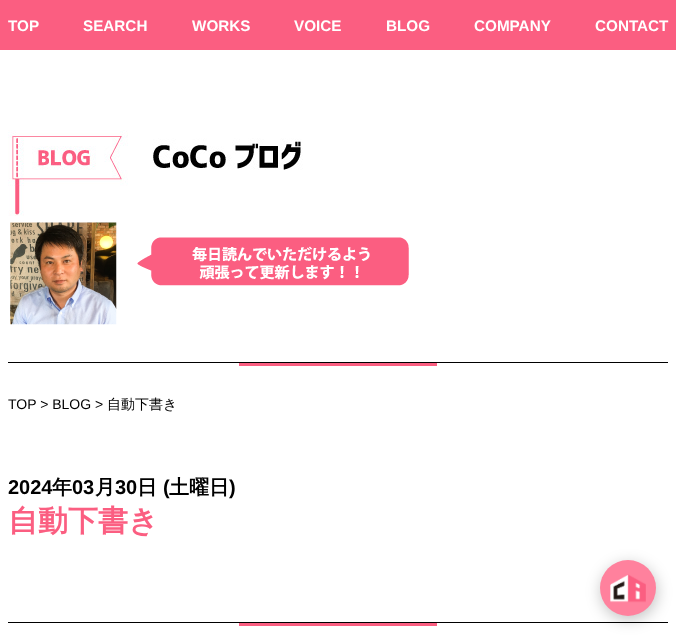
async function draw(canvas) {
	canvas.width = 676;
	canvas.height = 636;
	const c = canvas.getContext('2d');
	c.miterLimit = 4;
	c.fontKerning = 'normal';
	async function loadImage(src) {
		const img = new Image();
		img.src = src;
		await img.decode();
		return img;
	}

	c.fillStyle = '#fff';
	c.fillRect(0, 0, 676, 636);
	c.fillStyle = '#fb5e81';
	c.fillRect(0, 0, 676, 50);
	c.font = 'bold 15.25px Liberation Sans';
	c.fillStyle = '#fff';
	for (const [text, x, y] of [
		['TOP', 8, 31],
		['SEARCH', 83, 31],
		['WORKS', 192, 31],
		['VOICE', 294, 31],
		['BLOG', 386, 31],
		['COMPANY', 474, 31],
		['CONTACT', 595, 31],
	]) {
		c.fillText(text, x, y);
	}
	c.drawImage(await loadImage('img1.png'), 8, 130, 295, 86);
	c.drawImage(await loadImage('img2.png'), 10, 222, 399, 103);
	c.fillStyle = '#000';
	c.fillRect(8, 362, 660, 1);
	c.fillStyle = '#fb5e81';
	c.fillRect(239, 363, 198, 3);
	c.font = '14px Liberation Sans';
	c.fillStyle = '#000';
	c.fillText('TOP > BLOG >', 8, 409);
	c.font = '500 14px WenQuanYi Zen Hei';
	c.fillText('自動下書き', 107, 409);
	c.font = 'bold 20px Liberation Sans';
	c.fillText('2024', 8, 494);
	c.font = 'bold 20px WenQuanYi Zen Hei';
	c.fillText('年', 52, 494);
	c.font = 'bold 20px Liberation Sans';
	c.fillText('03', 72, 494);
	c.font = 'bold 20px WenQuanYi Zen Hei';
	c.fillText('月', 95, 494);
	c.font = 'bold 20px Liberation Sans';
	c.fillText('30', 115, 494);
	c.font = 'bold 20px WenQuanYi Zen Hei';
	c.fillText('日', 137, 494);
	c.font = 'bold 20px Liberation Sans';
	c.fillText('(', 163, 494);
	c.font = 'bold 20px WenQuanYi Zen Hei';
	c.fillText('土曜日', 169, 494);
	c.font = 'bold 20px Liberation Sans';
	c.fillText(')', 229, 494);
	c.font = 'bold 30px WenQuanYi Zen Hei';
	c.fillStyle = '#fb5e81';
	c.fillText('自動下書き', 8, 531);
	c.fillStyle = '#000';
	c.fillRect(8, 622, 660, 1);
	c.fillStyle = '#fb5e81';
	c.fillRect(239, 623, 198, 3);
	c.fillStyle = '#0000003d';
	c.filter = 'blur(7.5px)';
	c.beginPath();
	c.roundRect(601, 564, 56, 56, 28);
	c.fill();
	c.filter = 'none';
	c.fillStyle = '#ff819d';
	c.beginPath();
	c.arc(628, 588, 28, 0, 2 * Math.PI);
	c.fill();
	c.drawImage(await loadImage('img3.png'), 610, 574, 36, 29);
}

draw(document.querySelector('canvas'));
